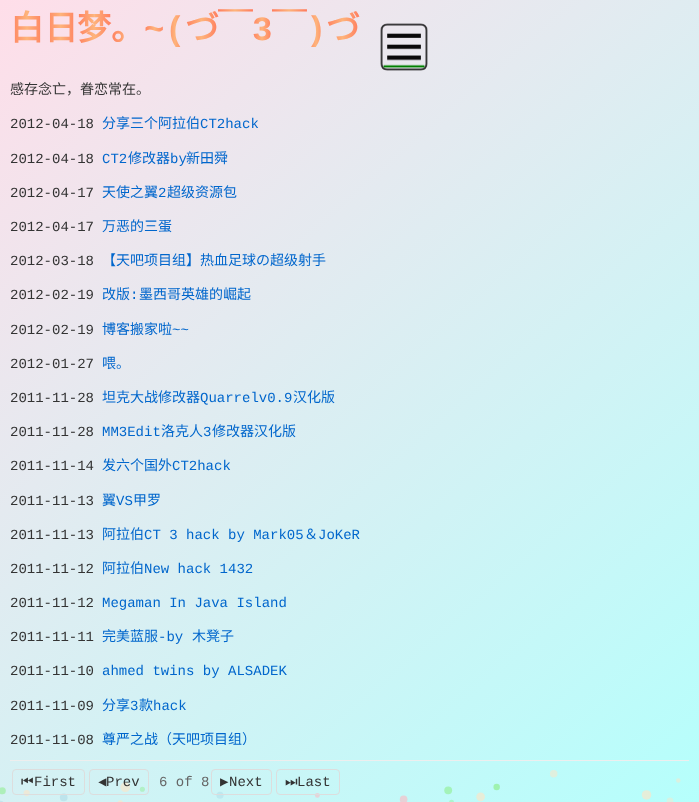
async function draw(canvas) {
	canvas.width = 699;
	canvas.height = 802;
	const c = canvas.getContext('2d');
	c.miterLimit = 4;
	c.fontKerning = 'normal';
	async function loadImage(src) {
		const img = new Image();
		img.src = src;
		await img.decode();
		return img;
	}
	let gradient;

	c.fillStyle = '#fff';
	c.fillRect(0, 0, 699, 802);
	c.drawImage(await loadImage('img1.png'), 0, 0, 699, 802);
	c.font = 'bold 34px Noto Sans CJK SC';
	gradient = c.createLinearGradient(10, 32, 44, 32);
	gradient.addColorStop(0, '#ff7e5f');
	gradient.addColorStop(0.5, '#feb47b');
	gradient.addColorStop(1, '#ff7e5f');
	c.fillStyle = gradient;
	c.fillText('白', 10, 40);
	gradient = c.createLinearGradient(44, 32, 77, 32);
	gradient.addColorStop(0, '#ff7e5f');
	gradient.addColorStop(0.5, '#feb47b');
	gradient.addColorStop(1, '#ff7e5f');
	c.fillStyle = gradient;
	c.fillText('日', 44, 40);
	gradient = c.createLinearGradient(77, 32, 111, 32);
	gradient.addColorStop(0, '#ff7e5f');
	gradient.addColorStop(0.5, '#feb47b');
	gradient.addColorStop(1, '#ff7e5f');
	c.fillStyle = gradient;
	c.fillText('梦', 77, 40);
	c.font = 'bold 34px Liberation Mono';
	gradient = c.createLinearGradient(144, 32, 165, 32);
	gradient.addColorStop(0, '#ff7e5f');
	gradient.addColorStop(0.5, '#feb47b');
	gradient.addColorStop(1, '#ff7e5f');
	c.fillStyle = gradient;
	c.fillText('~', 144, 40);
	gradient = c.createLinearGradient(165, 32, 185, 32);
	gradient.addColorStop(0, '#ff7e5f');
	gradient.addColorStop(0.5, '#feb47b');
	gradient.addColorStop(1, '#ff7e5f');
	c.fillStyle = gradient;
	c.fillText('(', 165, 40);
	c.font = 'bold 34px Noto Sans CJK SC';
	gradient = c.createLinearGradient(185, 32, 218, 32);
	gradient.addColorStop(0, '#ff7e5f');
	gradient.addColorStop(0.5, '#feb47b');
	gradient.addColorStop(1, '#ff7e5f');
	c.fillStyle = gradient;
	c.fillText('づ', 185, 40);
	gradient = c.createLinearGradient(218, 32, 252, 32);
	gradient.addColorStop(0, '#ff7e5f');
	gradient.addColorStop(0.5, '#feb47b');
	gradient.addColorStop(1, '#ff7e5f');
	c.fillStyle = gradient;
	c.fillText('￣', 218, 40);
	c.font = 'bold 34px Liberation Mono';
	gradient = c.createLinearGradient(252, 32, 272, 32);
	gradient.addColorStop(0, '#ff7e5f');
	gradient.addColorStop(0.5, '#feb47b');
	gradient.addColorStop(1, '#ff7e5f');
	c.fillStyle = gradient;
	c.fillText('3', 252, 40);
	c.font = 'bold 34px Noto Sans CJK SC';
	gradient = c.createLinearGradient(272, 32, 306, 32);
	gradient.addColorStop(0, '#ff7e5f');
	gradient.addColorStop(0.5, '#feb47b');
	gradient.addColorStop(1, '#ff7e5f');
	c.fillStyle = gradient;
	c.fillText('￣', 272, 40);
	c.font = 'bold 34px Liberation Mono';
	gradient = c.createLinearGradient(306, 32, 326, 32);
	gradient.addColorStop(0, '#ff7e5f');
	gradient.addColorStop(0.5, '#feb47b');
	gradient.addColorStop(1, '#ff7e5f');
	c.fillStyle = gradient;
	c.fillText(')', 306, 40);
	c.font = 'bold 34px Noto Sans CJK SC';
	gradient = c.createLinearGradient(326, 32, 359, 32);
	gradient.addColorStop(0, '#ff7e5f');
	gradient.addColorStop(0.5, '#feb47b');
	gradient.addColorStop(1, '#ff7e5f');
	c.fillStyle = gradient;
	c.fillText('づ', 326, 40);
	gradient = c.createLinearGradient(111, 32, 144, 32);
	gradient.addColorStop(0, '#ff7e5f');
	gradient.addColorStop(0.5, '#feb47b');
	gradient.addColorStop(1, '#ff7e5f');
	c.fillStyle = gradient;
	c.fillText('。', 111, 40);
	c.drawImage(await loadImage('img2.png'), 380, 23, 48, 48);
	c.font = '14px Noto Sans CJK SC';
	c.fillStyle = '#333';
	c.fillText('感存念亡，眷恋常在。', 10, 94);
	c.font = '14px Liberation Mono';
	c.fillText('2012-04-18', 10, 128);
	c.font = '14px Noto Sans CJK SC';
	c.fillStyle = '#06c';
	c.fillText('分享三个阿拉伯', 102, 128);
	c.font = '14px Liberation Mono';
	c.fillText('CT2hack', 200, 128);
	c.fillStyle = '#333';
	c.fillText('2012-04-18', 10, 163);
	c.fillStyle = '#06c';
	c.fillText('CT2', 102, 163);
	c.font = '14px Noto Sans CJK SC';
	c.fillText('修改器', 128, 163);
	c.font = '14px Liberation Mono';
	c.fillText('by', 170, 163);
	c.font = '14px Noto Sans CJK SC';
	c.fillText('新田舜', 186, 163);
	c.font = '14px Liberation Mono';
	c.fillStyle = '#333';
	c.fillText('2012-04-17', 10, 197);
	c.font = '14px Noto Sans CJK SC';
	c.fillStyle = '#06c';
	c.fillText('天使之翼', 102, 197);
	c.font = '14px Liberation Mono';
	c.fillText('2', 158, 197);
	c.font = '14px Noto Sans CJK SC';
	c.fillText('超级资源包', 167, 197);
	c.font = '14px Liberation Mono';
	c.fillStyle = '#333';
	c.fillText('2012-04-17', 10, 231);
	c.font = '14px Noto Sans CJK SC';
	c.fillStyle = '#06c';
	c.fillText('万恶的三蛋', 102, 231);
	c.font = '14px Liberation Mono';
	c.fillStyle = '#333';
	c.fillText('2012-03-18', 10, 265);
	c.font = '14px Noto Sans CJK SC';
	c.fillStyle = '#06c';
	c.fillText('【天吧项目组】热血足球の超级射手', 102, 265);
	c.font = '14px Liberation Mono';
	c.fillStyle = '#333';
	c.fillText('2012-02-19', 10, 299);
	c.font = '14px Noto Sans CJK SC';
	c.fillStyle = '#06c';
	c.fillText('改版', 102, 299);
	c.font = '14px Liberation Mono';
	c.fillText(':', 130, 299);
	c.font = '14px Noto Sans CJK SC';
	c.fillText('墨西哥英雄的崛起', 139, 299);
	c.font = '14px Liberation Mono';
	c.fillStyle = '#333';
	c.fillText('2012-02-19', 10, 334);
	c.font = '14px Noto Sans CJK SC';
	c.fillStyle = '#06c';
	c.fillText('博客搬家啦', 102, 334);
	c.font = '14px Liberation Mono';
	c.fillText('~~', 172, 334);
	c.fillStyle = '#333';
	c.fillText('2012-01-27', 10, 368);
	c.font = '14px Noto Sans CJK SC';
	c.fillStyle = '#06c';
	c.fillText('喂。', 102, 368);
	c.font = '14px Liberation Mono';
	c.fillStyle = '#333';
	c.fillText('2011-11-28', 10, 402);
	c.font = '14px Noto Sans CJK SC';
	c.fillStyle = '#06c';
	c.fillText('坦克大战修改器', 102, 402);
	c.font = '14px Liberation Mono';
	c.fillText('Quarrelv0.9', 200, 402);
	c.font = '14px Noto Sans CJK SC';
	c.fillText('汉化版', 293, 402);
	c.font = '14px Liberation Mono';
	c.fillStyle = '#333';
	c.fillText('2011-11-28', 10, 436);
	c.fillStyle = '#06c';
	c.fillText('MM3Edit', 102, 436);
	c.font = '14px Noto Sans CJK SC';
	c.fillText('洛克人', 161, 436);
	c.font = '14px Liberation Mono';
	c.fillText('3', 203, 436);
	c.font = '14px Noto Sans CJK SC';
	c.fillText('修改器汉化版', 212, 436);
	c.font = '14px Liberation Mono';
	c.fillStyle = '#333';
	c.fillText('2011-11-14', 10, 470);
	c.font = '14px Noto Sans CJK SC';
	c.fillStyle = '#06c';
	c.fillText('发六个国外', 102, 470);
	c.font = '14px Liberation Mono';
	c.fillText('CT2hack', 172, 470);
	c.fillStyle = '#333';
	c.fillText('2011-11-13', 10, 505);
	c.font = '14px Noto Sans CJK SC';
	c.fillStyle = '#06c';
	c.fillText('翼', 102, 505);
	c.font = '14px Liberation Mono';
	c.fillText('VS', 116, 505);
	c.font = '14px Noto Sans CJK SC';
	c.fillText('甲罗', 133, 505);
	c.font = '14px Liberation Mono';
	c.fillStyle = '#333';
	c.fillText('2011-11-13', 10, 539);
	c.font = '14px Noto Sans CJK SC';
	c.fillStyle = '#06c';
	c.fillText('阿拉伯', 102, 539);
	c.font = '14px Liberation Mono';
	c.fillText('CT 3 hack by Mark05', 144, 539);
	c.font = '14px Noto Sans CJK SC';
	c.fillText('＆', 304, 539);
	c.font = '14px Liberation Mono';
	c.fillText('JoKeR', 318, 539);
	c.fillStyle = '#333';
	c.fillText('2011-11-12', 10, 573);
	c.font = '14px Noto Sans CJK SC';
	c.fillStyle = '#06c';
	c.fillText('阿拉伯', 102, 573);
	c.font = '14px Liberation Mono';
	c.fillText('New hack 1432', 144, 573);
	c.fillStyle = '#333';
	c.fillText('2011-11-12', 10, 607);
	c.fillStyle = '#06c';
	c.fillText('Megaman In Java Island', 102, 607);
	c.fillStyle = '#333';
	c.fillText('2011-11-11', 10, 641);
	c.font = '14px Noto Sans CJK SC';
	c.fillStyle = '#06c';
	c.fillText('完美蓝服', 102, 641);
	c.font = '14px Liberation Mono';
	c.fillText('-by', 158, 641);
	c.font = '14px Noto Sans CJK SC';
	c.fillText('木凳子', 192, 641);
	c.font = '14px Liberation Mono';
	c.fillStyle = '#333';
	c.fillText('2011-11-10', 10, 675);
	c.fillStyle = '#06c';
	c.fillText('ahmed twins by ALSADEK', 102, 675);
	c.fillStyle = '#333';
	c.fillText('2011-11-09', 10, 710);
	c.font = '14px Noto Sans CJK SC';
	c.fillStyle = '#06c';
	c.fillText('分享', 102, 710);
	c.font = '14px Liberation Mono';
	c.fillText('3', 130, 710);
	c.font = '14px Noto Sans CJK SC';
	c.fillText('款', 139, 710);
	c.font = '14px Liberation Mono';
	c.fillText('hack', 153, 710);
	c.fillStyle = '#333';
	c.fillText('2011-11-08', 10, 744);
	c.save();
	c.beginPath();
	c.rect(10, 105, 679, 640);
	c.clip();
	c.font = '14px Noto Sans CJK SC';
	c.fillStyle = '#06c';
	c.fillText('尊严之战（天吧项目组）', 102, 744);
	c.restore();
	c.fillStyle = '#eee';
	c.fillRect(10, 760, 679, 1);
	c.beginPath();
	c.roundRect(12.5, 769.5, 72, 25, 3.5);
	c.strokeStyle = '#ddd';
	c.stroke();
	c.font = '14px FreeSans';
	c.fillStyle = '#333';
	c.fillText('⏮', 21, 786);
	c.font = '14px Liberation Mono';
	c.fillText('First', 34, 786);
	c.beginPath();
	c.roundRect(89.5, 769.5, 59, 25, 3.5);
	c.stroke();
	c.font = '14px DejaVu Sans Mono';
	c.fillText('◀', 98, 786);
	c.font = '14px Liberation Mono';
	c.fillText('Prev', 106, 786);
	c.fillStyle = '#666';
	c.fillText('6 of 8', 159, 786);
	c.beginPath();
	c.roundRect(211.5, 769.5, 60, 25, 3.5);
	c.stroke();
	c.font = '14px DejaVu Sans Mono';
	c.fillStyle = '#333';
	c.fillText('▶', 220, 786);
	c.font = '14px Liberation Mono';
	c.fillText('Next', 229, 786);
	c.beginPath();
	c.roundRect(276.5, 769.5, 63, 25, 3.5);
	c.stroke();
	c.font = '14px FreeSans';
	c.fillText('⏭', 285, 786);
	c.font = '14px Liberation Mono';
	c.fillText('Last', 297, 786);
}

draw(document.querySelector('canvas'));
